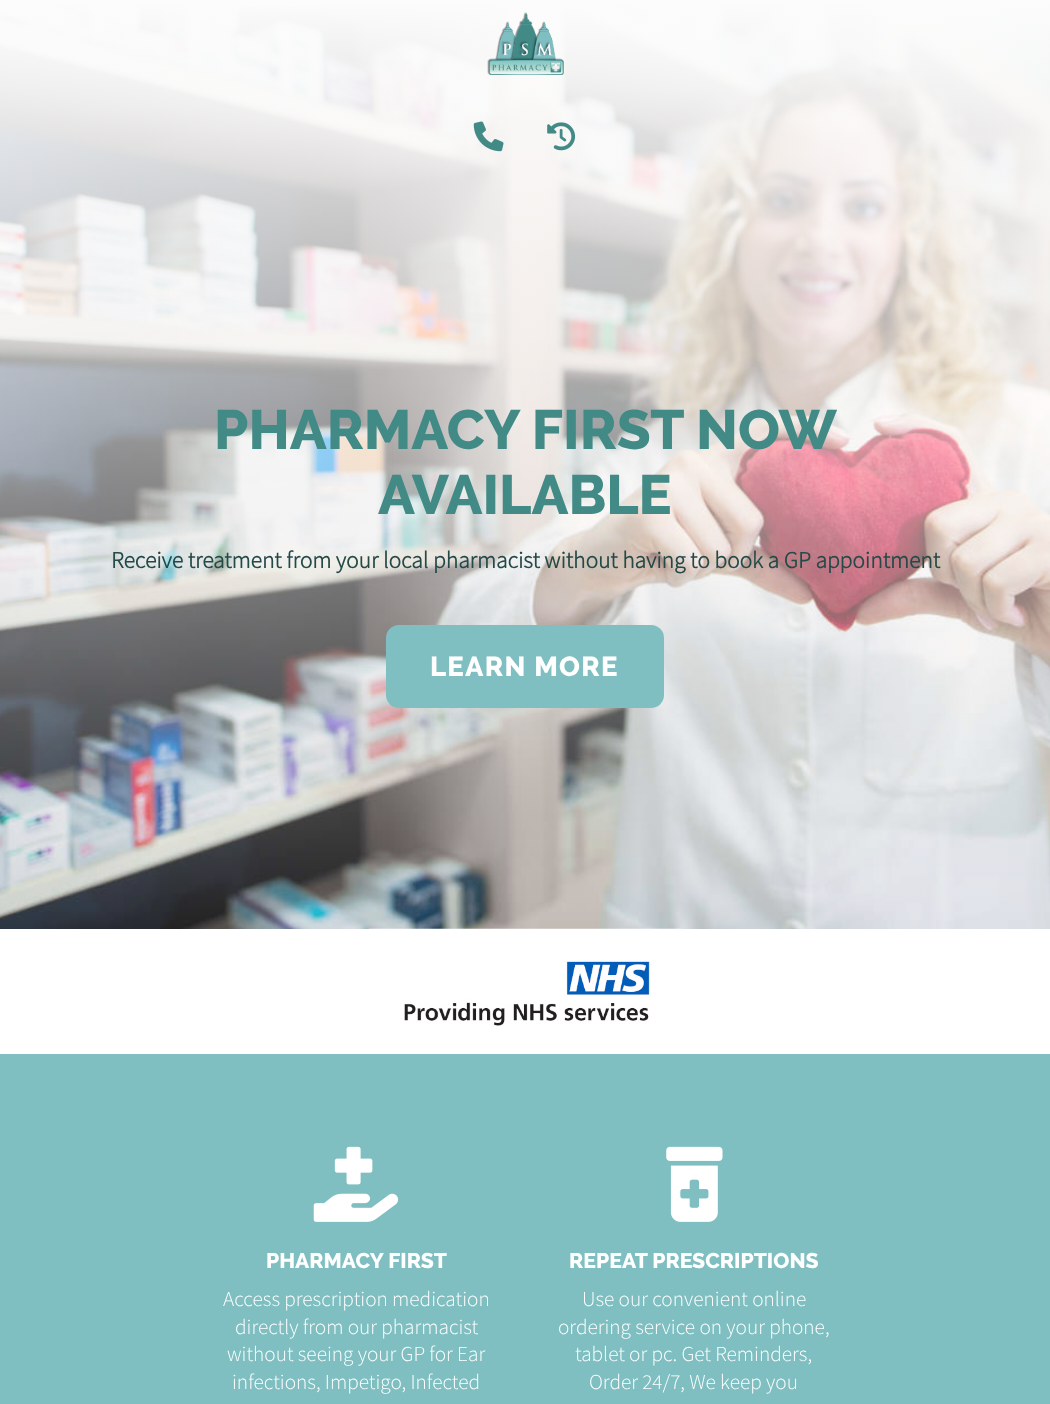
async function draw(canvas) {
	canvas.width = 1050;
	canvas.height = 1404;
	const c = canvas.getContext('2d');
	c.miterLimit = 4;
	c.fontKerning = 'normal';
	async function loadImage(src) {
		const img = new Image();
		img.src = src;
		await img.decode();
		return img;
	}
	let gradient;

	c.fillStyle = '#7fbfc1';
	c.fillRect(0, 0, 1050, 1404);
	c.drawImage(await loadImage('img4.png'), 0, 6, 1050, 923);
	gradient = c.createLinearGradient(525, 0, 525, 1054);
	gradient.addColorStop(0, '#fcfcfc');
	gradient.addColorStop(1, '#fcfcfc00');
	c.fillStyle = gradient;
	c.fillRect(0, 0, 1050, 929);
	c.drawImage(await loadImage('img1.png'), 487, 12, 77, 63);
	c.drawImage(await loadImage('img2.png'), 473, 121, 31, 31);
	c.drawImage(await loadImage('img3.png'), 547, 122, 29, 29);
	c.font = '800 55.25px Raleway';
	c.fillStyle = '#428a86';
	c.fillText('PHARMACY FIRST NOW', 214, 449);
	c.fillText('AVAILABLE', 378, 514);
	c.font = 'bold 23.4px Source Sans Pro';
	c.fillStyle = '#244a48';
	c.fillText('Receive treatment from your local pharmacist without having to book a GP appointment', 111, 568);
	c.fillStyle = '#7fbfc1';
	c.beginPath();
	c.roundRect(386, 625, 278, 83, 13);
	c.fill();
	c.letterSpacing = '1.25px';
	c.font = '800 27.5px Raleway';
	c.fillStyle = '#fff';
	c.fillText('LEARN MORE', 430, 676);
	c.fillRect(0, 929, 1050, 125);
	c.drawImage(await loadImage('img5.png'), 368, 928, 313, 98);
	c.drawImage(await loadImage('img6.png'), 313, 1146, 86, 76);
	c.letterSpacing = '0px';
	c.font = '800 21.25px Raleway';
	c.fillText('PHARMACY FIRST', 266, 1268);
	c.font = '300 21.25px Source Sans Pro';
	for (const [text, x, y] of [
		['Access prescription medication', 223, 1306],
		['directly from our pharmacist', 235, 1334],
		['without seeing your GP for Ear', 227, 1361],
		['infections, Impetigo, Infected', 232, 1389],
	]) {
		c.fillText(text, x, y);
	}
	c.drawImage(await loadImage('img7.png'), 666, 1146, 57, 76);
	c.font = '800 21.25px Raleway';
	c.fillText('REPEAT PRESCRIPTIONS', 569, 1268);
	c.font = '300 21.25px Source Sans Pro';
	for (const [text, x, y] of [
		['Use our convenient online', 582, 1306],
		['ordering service on your phone,', 558, 1334],
		['tablet or pc. Get Reminders,', 575, 1361],
		['Order 24/7, We keep you', 589, 1389],
	]) {
		c.fillText(text, x, y);
	}
}

draw(document.querySelector('canvas'));
